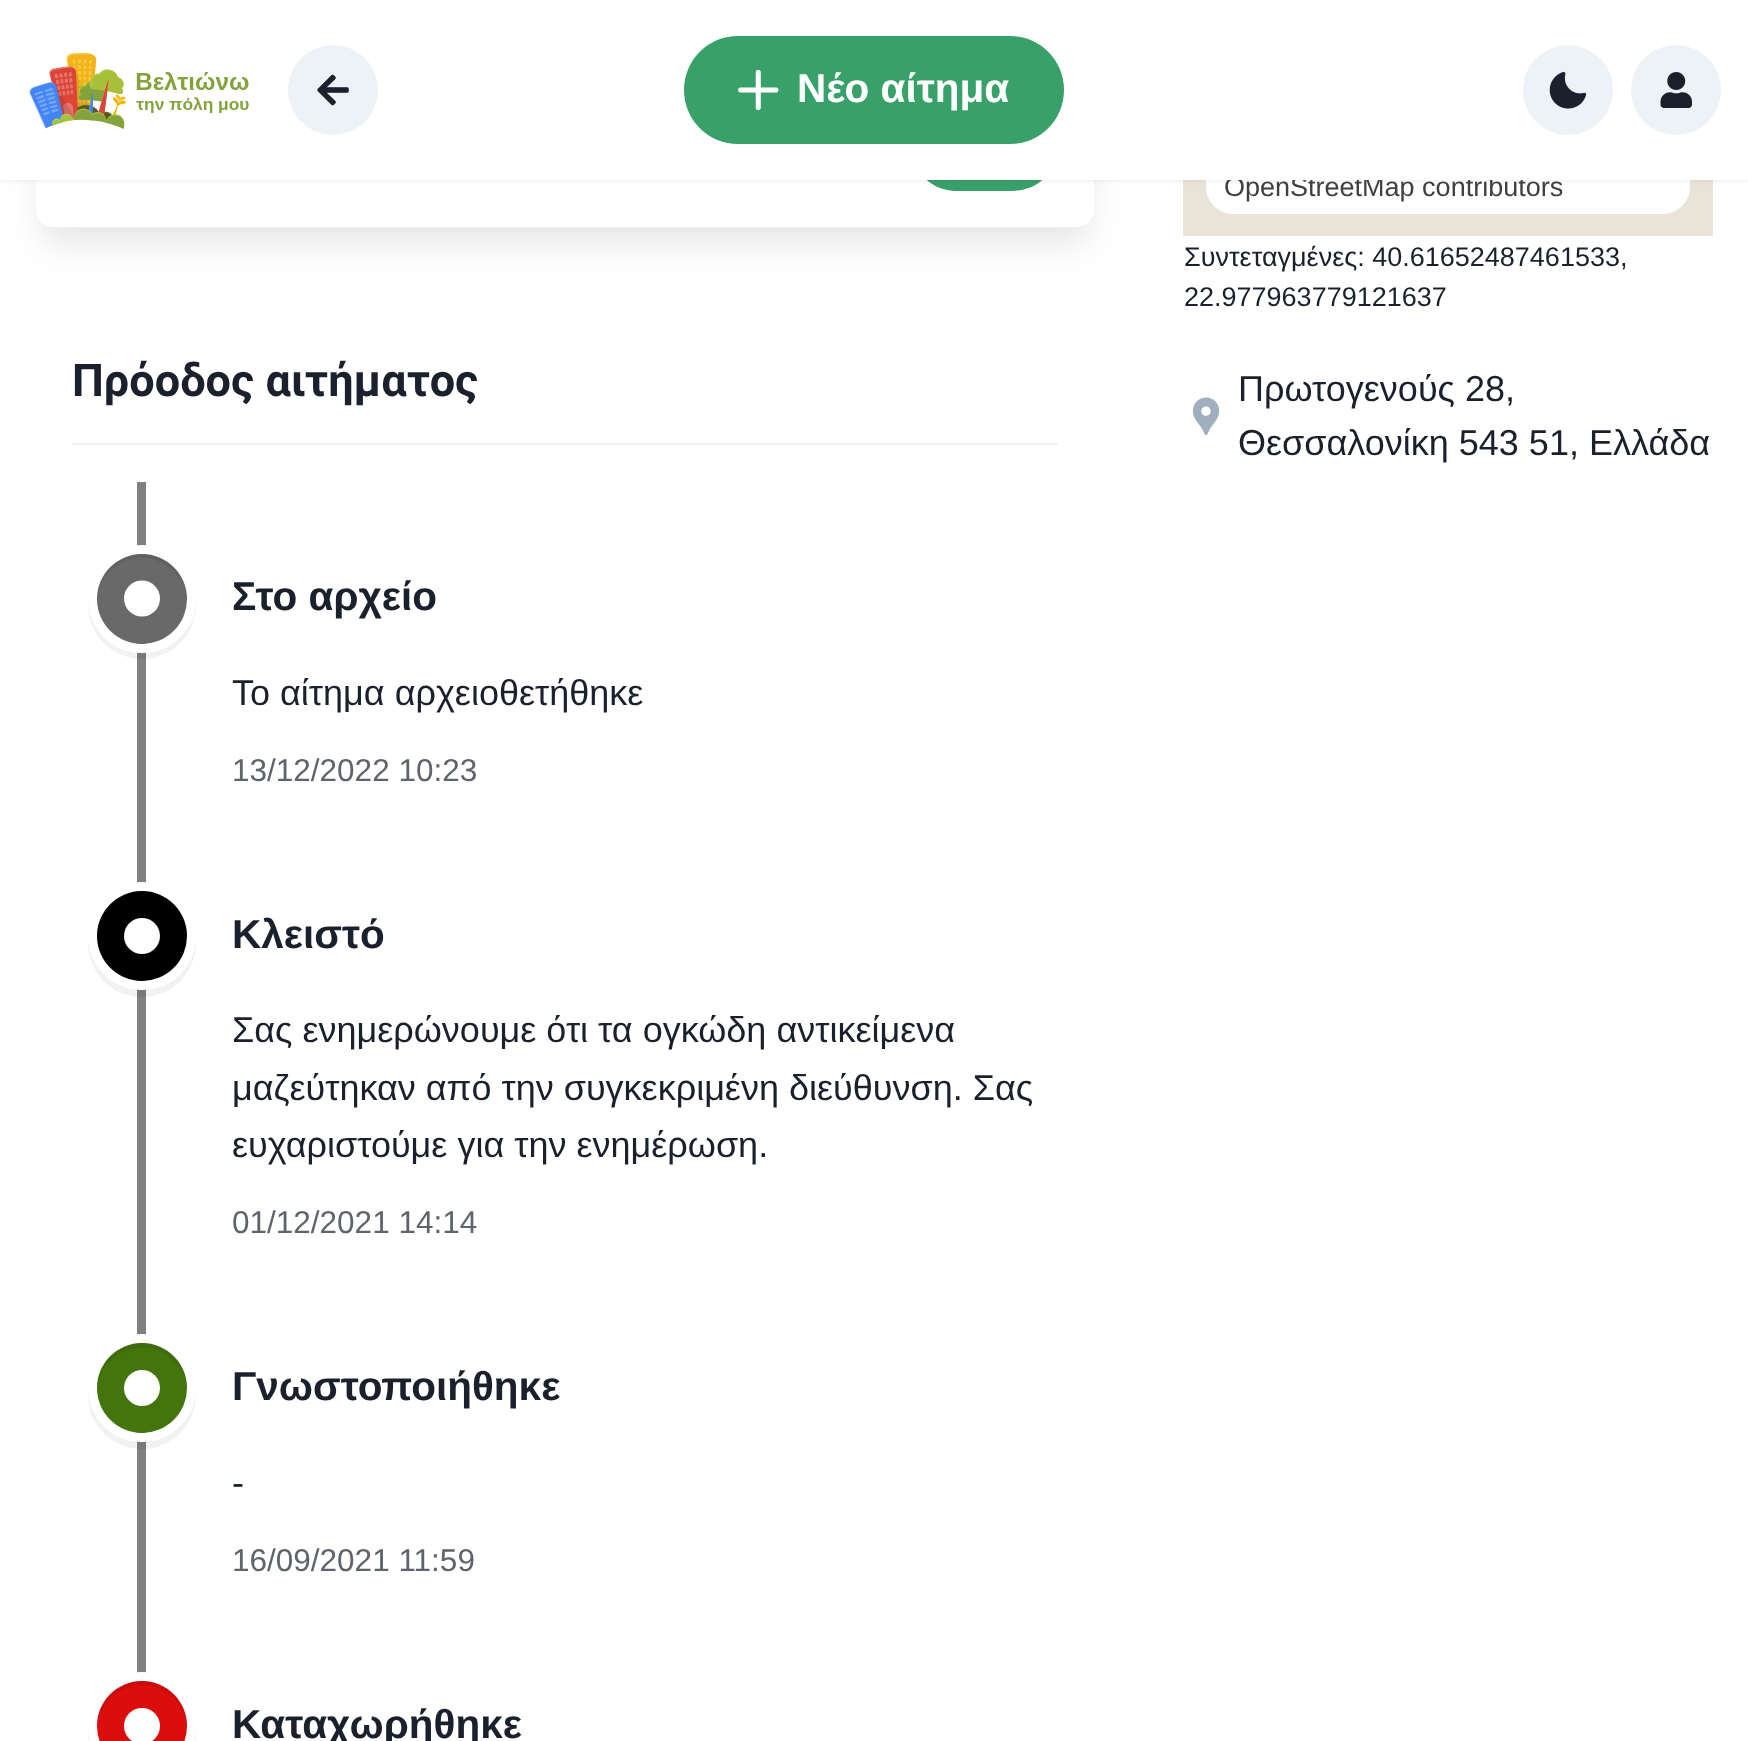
async function draw(canvas) {
	canvas.width = 1748;
	canvas.height = 1741;
	const c = canvas.getContext('2d');
	c.miterLimit = 4;
	c.fontKerning = 'normal';
	async function loadImage(src) {
		const img = new Image();
		img.src = src;
		await img.decode();
		return img;
	}

	c.fillStyle = '#fff';
	c.fillRect(0, 0, 1748, 1741);
	c.fillStyle = '#e8e5d8';
	c.fillRect(1183, 180, 530, 56);
	c.fillStyle = '#fff';
	c.beginPath();
	c.roundRect(1206, 115, 484, 99, 27);
	c.fill();
	c.save();
	c.beginPath();
	c.moveTo(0, 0);
	c.lineTo(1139, 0);
	c.lineTo(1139, 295);
	c.lineTo(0, 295);
	c.closePath();
	c.moveTo(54, -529);
	c.lineTo(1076, -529);
	c.bezierCurveTo(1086, -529, 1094, -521, 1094, -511);
	c.lineTo(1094, 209);
	c.bezierCurveTo(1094, 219, 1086, 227, 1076, 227);
	c.lineTo(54, 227);
	c.bezierCurveTo(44, 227, 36, 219, 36, 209);
	c.lineTo(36, -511);
	c.bezierCurveTo(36, -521, 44, -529, 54, -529);
	c.closePath();
	c.clip('evenodd');
	c.fillStyle = '#0000001a';
	c.filter = 'blur(17px)';
	c.beginPath();
	c.roundRect(43, -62, 1044, 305, 11);
	c.fill();
	c.filter = 'none';
	c.restore();
	c.fillStyle = '#38a169';
	c.beginPath();
	c.roundRect(911, 101, 147, 90, 45);
	c.fill();
	c.fillStyle = '#0000000d';
	c.filter = 'blur(2px)';
	c.beginPath();
	c.rect(0, 2, 1748, 180);
	c.fill();
	c.filter = 'none';
	c.font = '27px Liberation Sans';
	c.fillStyle = '#404040';
	c.fillText('OpenStreetMap contributors', 1224, 196);
	c.fillStyle = '#fff';
	c.fillRect(0, 0, 1748, 180);
	c.drawImage(await loadImage('img1.png'), 29, 53, 220, 76);
	c.fillStyle = '#edf2f7';
	c.beginPath();
	c.arc(333, 90, 45, 0, 2 * Math.PI);
	c.fill();
	c.drawImage(await loadImage('img2.png'), 317, 74, 32, 32);
	c.fillStyle = '#38a169';
	c.beginPath();
	c.roundRect(684, 36, 380, 108, 54);
	c.fill();
	c.drawImage(await loadImage('img3.png'), 738, 70, 41, 40);
	c.font = 'bold 40.5px Liberation Sans';
	c.fillStyle = '#fff';
	c.fillText('Νέο αίτημα', 797, 102);
	c.fillStyle = '#edf2f7';
	c.beginPath();
	c.arc(1568, 90, 45, 0, 2 * Math.PI);
	c.fill();
	c.drawImage(await loadImage('img4.png'), 1549, 71, 38, 38);
	c.beginPath();
	c.arc(1676, 90, 45, 0, 2 * Math.PI);
	c.fill();
	c.drawImage(await loadImage('img5.png'), 1660, 72, 32, 36);
	c.font = '27px Liberation Sans';
	c.fillStyle = '#1a202c';
	c.fillText('Συντεταγμένες: 40.61652487461533,', 1184, 266);
	c.fillText('22.977963779121637', 1184, 306);
	c.drawImage(await loadImage('img6.png'), 1192, 397, 28, 38);
	c.font = '36px Liberation Sans';
	c.fillText('Πρωτογενούς 28,', 1238, 401);
	c.fillText('Θεσσαλονίκη 543 51, Ελλάδα', 1238, 455);
	c.font = 'bold 45px Roboto';
	c.fillText('Πρόοδος αιτήματος', 72, 396);
	c.fillStyle = '#eef1f6';
	c.fillRect(72, 443, 986, 2);
	c.fillStyle = '#808080';
	c.fillRect(137, 482, 9, 1200);
	c.fillStyle = '#0000000d';
	c.beginPath();
	c.moveTo(142, 551);
	c.bezierCurveTo(112, 551, 88, 575, 88, 605);
	c.bezierCurveTo(88, 635, 112, 659, 142, 659);
	c.bezierCurveTo(172, 659, 196, 635, 196, 605);
	c.bezierCurveTo(196, 575, 172, 551, 142, 551);
	c.closePath();
	c.moveTo(142, 554);
	c.bezierCurveTo(117, 554, 97, 574, 97, 598);
	c.bezierCurveTo(97, 623, 117, 644, 142, 644);
	c.bezierCurveTo(167, 644, 187, 623, 187, 598);
	c.bezierCurveTo(187, 574, 167, 554, 142, 554);
	c.closePath();
	c.fill('evenodd');
	c.beginPath();
	c.arc(142, 599, 49.5, 0, 2 * Math.PI);
	c.strokeStyle = '#fff';
	c.lineWidth = 9;
	c.stroke();
	c.fillStyle = '#696969';
	c.beginPath();
	c.arc(142, 599, 45, 0, 2 * Math.PI);
	c.fill();
	c.fillStyle = '#00000014';
	c.beginPath();
	c.moveTo(142, 558);
	c.bezierCurveTo(166, 558, 186, 577, 187, 601);
	c.bezierCurveTo(187, 591, 185, 582, 179, 574);
	c.bezierCurveTo(154, 536, 95, 556, 97, 601);
	c.bezierCurveTo(98, 577, 118, 558, 142, 558);
	c.closePath();
	c.fill();
	c.fillStyle = '#fff';
	c.beginPath();
	c.arc(142, 598.5, 18, 0, 2 * Math.PI);
	c.fill();
	c.font = 'bold 40.5px Liberation Sans';
	c.fillStyle = '#1a202c';
	c.fillText('Στο αρχείο', 232, 610);
	c.font = '36px Liberation Sans';
	c.fillText('Το αίτημα αρχειοθετήθηκε', 232, 705);
	c.font = '31.5px Liberation Sans';
	c.fillStyle = '#5f636b';
	c.fillText('13/12/2022 10:23', 232, 781);
	c.fillStyle = '#0000000d';
	c.beginPath();
	c.moveTo(142, 889);
	c.bezierCurveTo(112, 889, 88, 913, 88, 943);
	c.bezierCurveTo(88, 973, 112, 997, 142, 997);
	c.bezierCurveTo(172, 997, 196, 973, 196, 943);
	c.bezierCurveTo(196, 913, 172, 889, 142, 889);
	c.closePath();
	c.moveTo(142, 891);
	c.bezierCurveTo(117, 891, 97, 911, 97, 936);
	c.bezierCurveTo(97, 961, 117, 981, 142, 981);
	c.bezierCurveTo(167, 981, 187, 961, 187, 936);
	c.bezierCurveTo(187, 911, 167, 891, 142, 891);
	c.closePath();
	c.fill('evenodd');
	c.beginPath();
	c.arc(142, 936, 49.5, 0, 2 * Math.PI);
	c.stroke();
	c.fillStyle = '#000';
	c.beginPath();
	c.arc(142, 936, 45, 0, 2 * Math.PI);
	c.fill();
	c.fillStyle = '#00000014';
	c.beginPath();
	c.moveTo(142, 896);
	c.bezierCurveTo(166, 896, 186, 915, 187, 938);
	c.bezierCurveTo(189, 893, 130, 873, 105, 911);
	c.bezierCurveTo(99, 919, 97, 928, 97, 938);
	c.bezierCurveTo(98, 915, 118, 896, 142, 896);
	c.closePath();
	c.fill();
	c.fillStyle = '#fff';
	c.beginPath();
	c.arc(142, 936, 18, 0, 2 * Math.PI);
	c.fill();
	c.font = 'bold 40.5px Liberation Sans';
	c.fillStyle = '#1a202c';
	c.fillText('Κλειστό', 232, 948);
	c.font = '36px Liberation Sans';
	for (const [text, x, y] of [
		['Σας ενημερώνουμε ότι τα ογκώδη αντικείμενα', 232, 1042],
		['μαζεύτηκαν από την συγκεκριμένη διεύθυνση. Σας', 232, 1100],
		['ευχαριστούμε για την ενημέρωση.', 232, 1157],
	]) {
		c.fillText(text, x, y);
	}
	c.font = '31.5px Liberation Sans';
	c.fillStyle = '#5f636b';
	c.fillText('01/12/2021 14:14', 232, 1233);
	c.fillStyle = '#0000000d';
	c.beginPath();
	c.moveTo(142, 1341);
	c.bezierCurveTo(112, 1341, 88, 1365, 88, 1395);
	c.bezierCurveTo(88, 1425, 112, 1449, 142, 1449);
	c.bezierCurveTo(172, 1449, 196, 1425, 196, 1395);
	c.bezierCurveTo(196, 1365, 172, 1341, 142, 1341);
	c.closePath();
	c.moveTo(142, 1343);
	c.bezierCurveTo(117, 1343, 97, 1363, 97, 1388);
	c.bezierCurveTo(97, 1413, 117, 1433, 142, 1433);
	c.bezierCurveTo(167, 1433, 187, 1413, 187, 1388);
	c.bezierCurveTo(187, 1363, 167, 1343, 142, 1343);
	c.closePath();
	c.fill('evenodd');
	c.beginPath();
	c.arc(142, 1388, 49.5, 0, 2 * Math.PI);
	c.stroke();
	c.fillStyle = '#44750d';
	c.beginPath();
	c.arc(142, 1388, 45, 0, 2 * Math.PI);
	c.fill();
	c.fillStyle = '#00000014';
	c.beginPath();
	c.moveTo(142, 1348);
	c.bezierCurveTo(166, 1348, 186, 1367, 187, 1390);
	c.bezierCurveTo(187, 1381, 185, 1371, 179, 1363);
	c.bezierCurveTo(154, 1325, 95, 1345, 97, 1390);
	c.bezierCurveTo(98, 1367, 118, 1348, 142, 1348);
	c.closePath();
	c.fill();
	c.fillStyle = '#fff';
	c.beginPath();
	c.arc(142, 1388, 18, 0, 2 * Math.PI);
	c.fill();
	c.font = 'bold 40.5px Liberation Sans';
	c.fillStyle = '#1a202c';
	c.fillText('Γνωστοποιήθηκε', 232, 1400);
	c.font = '36px Liberation Sans';
	c.fillText('-', 232, 1495);
	c.font = '31.5px Liberation Sans';
	c.fillStyle = '#5f636b';
	c.fillText('16/09/2021 11:59', 232, 1571);
	c.fillStyle = '#0000000d';
	c.beginPath();
	c.moveTo(142, 1679);
	c.bezierCurveTo(112, 1679, 88, 1703, 88, 1733);
	c.bezierCurveTo(88, 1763, 112, 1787, 142, 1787);
	c.bezierCurveTo(172, 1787, 196, 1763, 196, 1733);
	c.bezierCurveTo(196, 1703, 172, 1679, 142, 1679);
	c.closePath();
	c.moveTo(142, 1681);
	c.bezierCurveTo(117, 1681, 97, 1701, 97, 1726);
	c.bezierCurveTo(97, 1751, 117, 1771, 142, 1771);
	c.bezierCurveTo(167, 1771, 187, 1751, 187, 1726);
	c.bezierCurveTo(187, 1701, 167, 1681, 142, 1681);
	c.closePath();
	c.fill('evenodd');
	c.beginPath();
	c.arc(142, 1726, 49.5, 0, 2 * Math.PI);
	c.stroke();
	c.fillStyle = '#db0d0d';
	c.beginPath();
	c.arc(142, 1726, 45, 0, 2 * Math.PI);
	c.fill();
	c.fillStyle = '#00000014';
	c.beginPath();
	c.moveTo(142, 1685);
	c.bezierCurveTo(166, 1685, 186, 1704, 187, 1728);
	c.bezierCurveTo(187, 1718, 185, 1709, 179, 1701);
	c.bezierCurveTo(154, 1663, 95, 1683, 97, 1728);
	c.bezierCurveTo(98, 1704, 118, 1685, 142, 1685);
	c.closePath();
	c.fill();
	c.fillStyle = '#fff';
	c.beginPath();
	c.arc(142, 1726, 18, 0, 2 * Math.PI);
	c.fill();
	c.font = 'bold 40.5px Liberation Sans';
	c.fillStyle = '#1a202c';
	c.fillText('Καταχωρήθηκε', 232, 1738);
}

draw(document.querySelector('canvas'));
